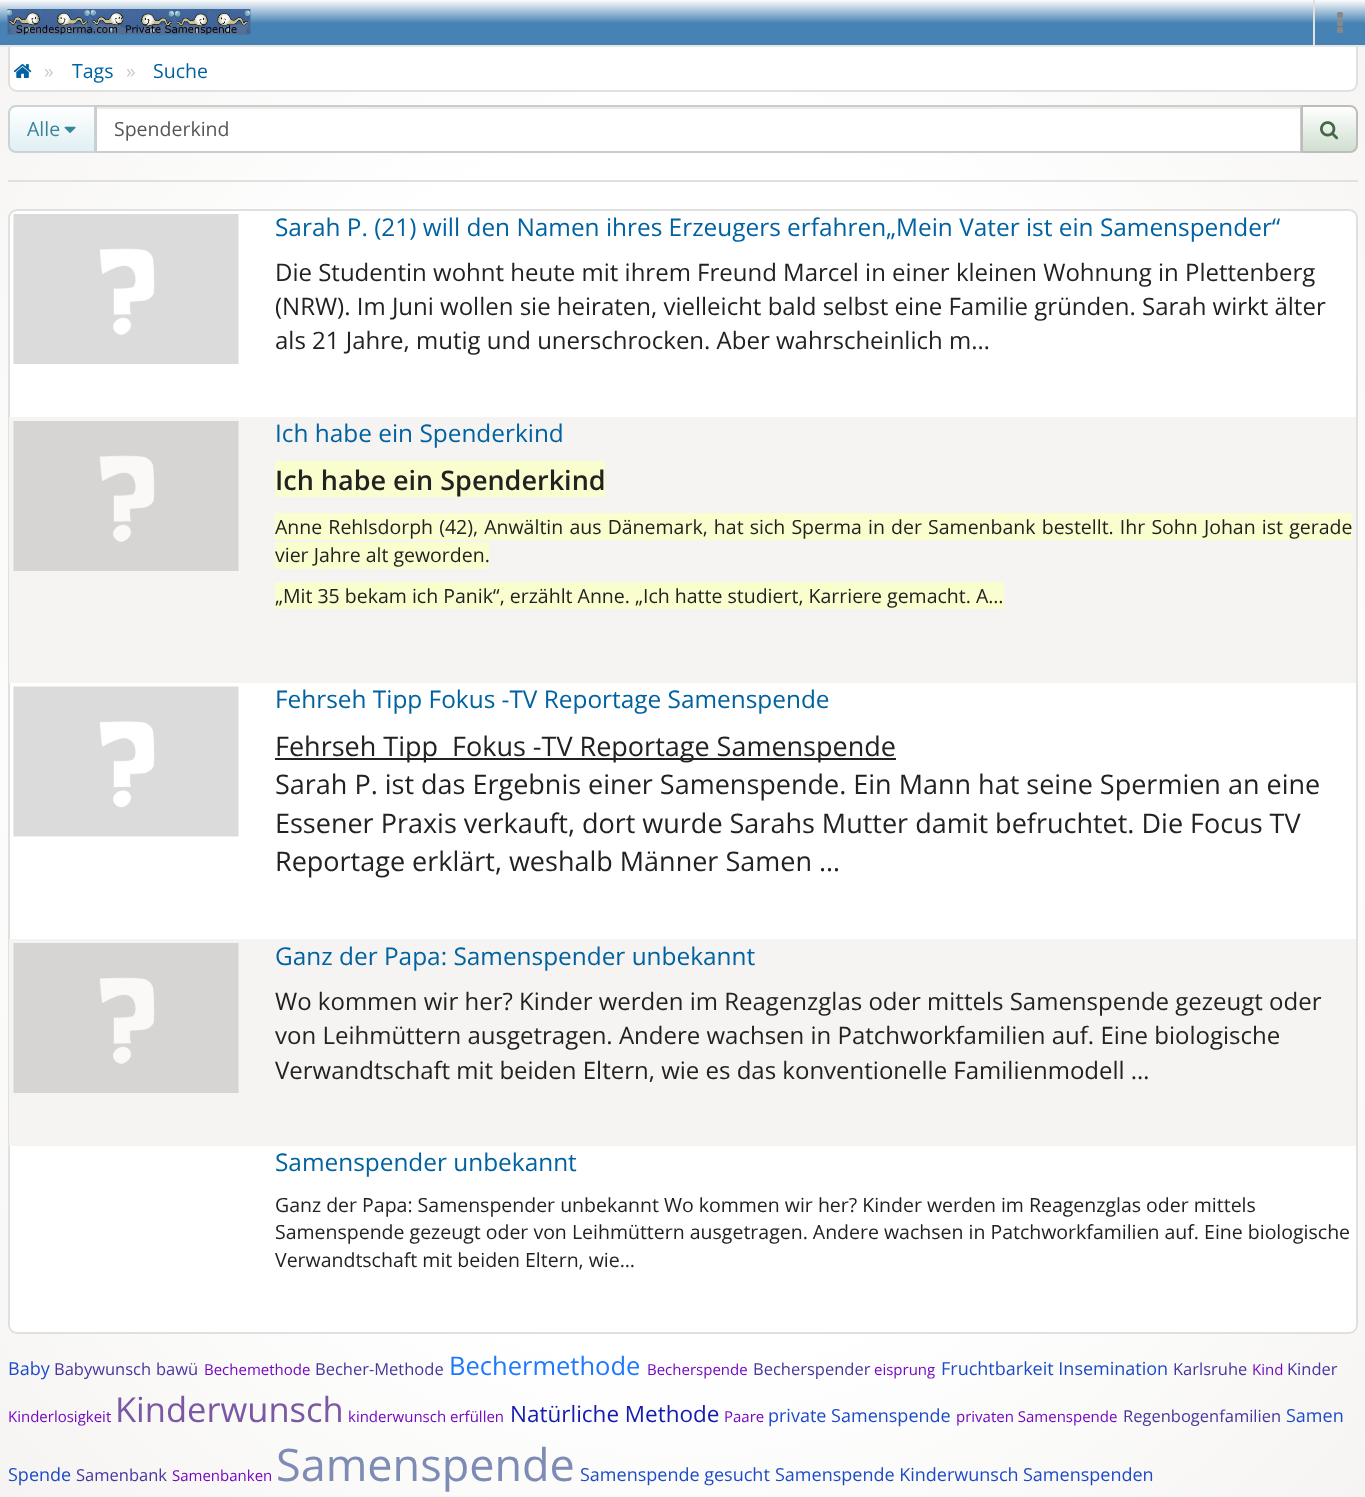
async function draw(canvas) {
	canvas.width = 1365;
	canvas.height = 1497;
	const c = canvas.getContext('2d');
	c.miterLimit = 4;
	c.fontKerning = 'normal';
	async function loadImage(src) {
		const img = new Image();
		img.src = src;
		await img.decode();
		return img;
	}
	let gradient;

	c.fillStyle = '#fff';
	c.fillRect(0, 0, 1365, 1497);
	gradient = c.createRadialGradient(683, 682.52, 0, 683, 682.52, 965);
	gradient.addColorStop(0, '#fff');
	gradient.addColorStop(0.57, '#fff');
	gradient.addColorStop(1, '#f5f4f2');
	c.fillStyle = gradient;
	c.beginPath();
	c.rect(0, 47, 1365, 1450);
	c.save();
	c.clip();
	c.scale(1, 1059 / 965);
	c.fillRect(0, 0, 1365, 1365);
	c.restore();
	c.fillStyle = '#fff';
	c.beginPath();
	c.roundRect(9, -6, 1348, 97, 8);
	c.fill();
	c.strokeStyle = '#e0e0e0';
	c.lineWidth = 2;
	c.stroke();
	c.fillStyle = '#e7e7e7';
	c.fillRect(0, 45, 1365, 2);
	gradient = c.createLinearGradient(683, 0, 683, 45);
	gradient.addColorStop(0, '#fcfcfc');
	gradient.addColorStop(0.52, '#4682b4');
	gradient.addColorStop(1, '#4682b4');
	c.fillStyle = gradient;
	c.fillRect(0, 0, 1365, 45);
	c.drawImage(await loadImage('img1.png'), 7, 9, 244, 26);
	c.fillStyle = '#e0e0e0';
	c.fillRect(1313, 0, 2, 45);
	c.fillStyle = '#888';
	c.beginPath();
	c.roundRect(1337, 12, 6, 6, 1.5);
	c.fill();
	c.beginPath();
	c.roundRect(1337, 20, 6, 6, 1.5);
	c.fill();
	c.beginPath();
	c.roundRect(1337, 27, 6, 6, 1.5);
	c.fill();
	c.drawImage(await loadImage('img2.png'), 13, 64, 19, 14);
	c.font = '19.5px Open Sans';
	c.fillStyle = '#ccc';
	c.fillText('»', 44, 78);
	c.fillStyle = '#0062a0';
	c.fillText('Tags', 72, 78);
	c.fillStyle = '#ccc';
	c.fillText('»', 126, 78);
	c.fillStyle = '#0062a0';
	c.fillText('Suche', 153, 78);
	c.save();
	c.beginPath();
	c.roundRect(8, 105, 88, 48, [8, 0, 0, 8]);
	c.clip();
	gradient = c.createLinearGradient(52, 107, 52, 152);
	gradient.addColorStop(0, '#fff');
	gradient.addColorStop(1, '#dfeff3');
	c.fillStyle = gradient;
	c.fillRect(8, 107, 86, 45);
	c.restore();
	c.beginPath();
	c.roundRect(9, 106, 86, 46, [7, 0, 0, 7]);
	c.strokeStyle = '#c8d4d7';
	c.stroke();
	c.fillStyle = '#38849b';
	c.fillText('Alle', 27, 136);
	c.drawImage(await loadImage('img3.png'), 64, 126, 12, 7);
	c.fillStyle = '#fff';
	c.fillRect(97, 109, 1203, 42);
	c.fillStyle = '#ececec';
	c.fillRect(96, 107, 1205, 2);
	c.strokeStyle = '#ccc';
	c.strokeRect(96, 106, 1205, 46);
	c.fillStyle = '#555';
	c.fillText('Spenderkind', 114, 136);
	c.save();
	c.beginPath();
	c.roundRect(1301, 105, 57, 48, [0, 8, 8, 0]);
	c.clip();
	gradient = c.createLinearGradient(1329, 107, 1329, 152);
	gradient.addColorStop(0, '#fff');
	gradient.addColorStop(1, '#cfdecf');
	c.fillStyle = gradient;
	c.fillRect(1303, 107, 55, 45);
	c.restore();
	c.beginPath();
	c.roundRect(1302, 106, 55, 46, [0, 7, 7, 0]);
	c.strokeStyle = '#bdbdbd';
	c.stroke();
	c.drawImage(await loadImage('img4.png'), 1320, 121, 19, 19);
	c.fillStyle = '#e0e0e0';
	c.fillRect(8, 180, 1350, 2);
	c.fillStyle = '#fff';
	c.beginPath();
	c.roundRect(9, 210, 1348, 1123, 8);
	c.fill();
	c.strokeStyle = '#e0e0e0';
	c.stroke();
	c.drawImage(await loadImage('img5.png'), 13, 214, 226, 150);
	c.font = '24.4px Open Sans';
	c.fillStyle = '#0062a0';
	c.fillText('Sarah P. (21) will den Namen ihres Erzeugers erfahren„Mein Vater ist ein Samenspender“', 275, 236);
	c.font = '24px Open Sans';
	c.fillStyle = '#222';
	for (const [text, x, y] of [
		['Die Studentin wohnt heute mit ihrem Freund Marcel in einer kleinen Wohnung in Plettenberg', 275, 281],
		['(NRW). Im Juni wollen sie heiraten, vielleicht bald selbst eine Familie gründen. Sarah wirkt älter', 275, 315],
		['als 21 Jahre, mutig und unerschrocken. Aber wahrscheinlich m…', 275, 349],
	]) {
		c.fillText(text, x, y);
	}
	c.fillStyle = '#f5f4f2';
	c.fillRect(9, 417, 1347, 266);
	c.drawImage(await loadImage('img6.png'), 13, 421, 226, 150);
	c.font = '24.4px Open Sans';
	c.fillStyle = '#0062a0';
	c.fillText('Ich habe ein Spenderkind', 275, 442);
	c.fillStyle = '#fafdcd';
	c.fillRect(275, 461, 330, 36);
	c.font = '600 27px Open Sans';
	c.fillStyle = '#222';
	c.fillText('Ich habe ein Spenderkind', 275, 490);
	c.fillStyle = '#fafdcd';
	c.fillRect(275, 513, 1077, 27);
	c.wordSpacing = '1.1px';
	c.font = '19.5px Open Sans';
	c.fillStyle = '#222';
	c.fillText('Anne Rehlsdorph (42), Anwältin aus Dänemark, hat sich Sperma in der Samenbank bestellt. Ihr Sohn Johan ist gerade', 275, 534);
	c.fillStyle = '#fafdcd';
	c.fillRect(275, 542, 214, 27);
	c.wordSpacing = '0px';
	c.fillStyle = '#222';
	c.fillText('vier Jahre alt geworden.', 275, 562);
	c.fillStyle = '#fafdcd';
	c.fillRect(275, 582, 729, 27);
	c.fillStyle = '#222';
	c.fillText('„Mit 35 bekam ich Panik“, erzählt Anne. „Ich hatte studiert, Karriere gemacht. A…', 275, 603);
	c.drawImage(await loadImage('img7.png'), 13, 686, 226, 151);
	c.font = '24.4px Open Sans';
	c.fillStyle = '#0062a0';
	c.fillText('Fehrseh Tipp Fokus -TV Reportage Samenspende', 275, 708);
	c.fillStyle = '#222';
	c.fillRect(275, 758, 621, 2);
	c.font = '27px Open Sans';
	for (const [text, x, y] of [
		['Fehrseh Tipp  Fokus -TV Reportage Samenspende', 275, 756],
		['Sarah P. ist das Ergebnis einer Samenspende. Ein Mann hat seine Spermien an eine', 275, 794],
		['Essener Praxis verkauft, dort wurde Sarahs Mutter damit befruchtet. Die Focus TV', 275, 833],
		['Reportage erklärt, weshalb Männer Samen …', 275, 871],
	]) {
		c.fillText(text, x, y);
	}
	c.fillStyle = '#f5f4f2';
	c.fillRect(9, 939, 1347, 207);
	c.drawImage(await loadImage('img6.png'), 13, 943, 226, 150);
	c.font = '24.4px Open Sans';
	c.fillStyle = '#0062a0';
	c.fillText('Ganz der Papa: Samenspender unbekannt', 275, 965);
	c.font = '24px Open Sans';
	c.fillStyle = '#222';
	for (const [text, x, y] of [
		['Wo kommen wir her? Kinder werden im Reagenzglas oder mittels Samenspende gezeugt oder', 275, 1010],
		['von Leihmüttern ausgetragen. Andere wachsen in Patchworkfamilien auf. Eine biologische', 275, 1044],
		['Verwandtschaft mit beiden Eltern, wie es das konventionelle Familienmodell …', 275, 1079],
	]) {
		c.fillText(text, x, y);
	}
	c.font = '24.4px Open Sans';
	c.fillStyle = '#0062a0';
	c.fillText('Samenspender unbekannt', 275, 1171);
	c.font = '19.5px Open Sans';
	c.fillStyle = '#222';
	for (const [text, x, y] of [
		['Ganz der Papa: Samenspender unbekannt Wo kommen wir her? Kinder werden im Reagenzglas oder mittels', 275, 1212],
		['Samenspende gezeugt oder von Leihmüttern ausgetragen. Andere wachsen in Patchworkfamilien auf. Eine biologische', 275, 1239],
		['Verwandtschaft mit beiden Eltern, wie…', 275, 1267],
	]) {
		c.fillText(text, x, y);
	}
	c.font = '18px Open Sans';
	c.fillStyle = '#1d4bc7';
	c.fillText('Baby', 8, 1375);
	c.font = '16.5px Open Sans';
	c.fillStyle = '#48359e';
	c.fillText('Babywunsch', 54, 1375);
	c.fillText('bawü', 156, 1375);
	c.font = '15px Open Sans';
	c.fillStyle = '#7507c2';
	c.fillText('Bechemethode', 204, 1375);
	c.font = '16.5px Open Sans';
	c.fillStyle = '#48359e';
	c.fillText('Becher-Methode', 315, 1375);
	c.font = '25.5px Open Sans';
	c.fillStyle = '#1e79fe';
	c.fillText('Bechermethode', 449, 1375);
	c.font = '15px Open Sans';
	c.fillStyle = '#7507c2';
	c.fillText('Becherspende', 647, 1375);
	c.font = '16.5px Open Sans';
	c.fillStyle = '#48359e';
	c.fillText('Becherspender', 753, 1375);
	c.font = '15px Open Sans';
	c.fillStyle = '#7507c2';
	c.fillText('eisprung', 874, 1375);
	c.font = '18px Open Sans';
	c.fillStyle = '#1d4bc7';
	c.fillText('Fruchtbarkeit Insemination', 941, 1375);
	c.font = '16.5px Open Sans';
	c.fillStyle = '#48359e';
	c.fillText('Karlsruhe', 1173, 1375);
	c.font = '15px Open Sans';
	c.fillStyle = '#7507c2';
	c.fillText('Kind', 1252, 1375);
	c.font = '16.5px Open Sans';
	c.fillStyle = '#48359e';
	c.fillText('Kinder', 1287, 1375);
	c.font = '15px Open Sans';
	c.fillStyle = '#7507c2';
	c.fillText('Kinderlosigkeit', 8, 1422);
	c.font = '34.5px Open Sans';
	c.fillStyle = '#7c57a4';
	c.fillText('Kinderwunsch', 115, 1422);
	c.font = '15px Open Sans';
	c.fillStyle = '#7507c2';
	c.fillText('kinderwunsch erfüllen', 348, 1422);
	c.font = '22.5px Open Sans';
	c.fillStyle = '#131cb1';
	c.fillText('Natürliche Methode', 510, 1422);
	c.font = '15px Open Sans';
	c.fillStyle = '#7507c2';
	c.fillText('Paare', 724, 1422);
	c.font = '18px Open Sans';
	c.fillStyle = '#1d4bc7';
	c.fillText('private Samenspende', 768, 1422);
	c.font = '15px Open Sans';
	c.fillStyle = '#7507c2';
	c.fillText('privaten Samenspende', 956, 1422);
	c.font = '16.5px Open Sans';
	c.fillStyle = '#48359e';
	c.fillText('Regenbogenfamilien', 1123, 1422);
	c.font = '18px Open Sans';
	c.fillStyle = '#1d4bc7';
	c.fillText('Samen', 1286, 1422);
	c.fillText('Spende', 8, 1481);
	c.font = '16.5px Open Sans';
	c.fillStyle = '#48359e';
	c.fillText('Samenbank', 76, 1481);
	c.font = '15px Open Sans';
	c.fillStyle = '#7507c2';
	c.fillText('Samenbanken', 172, 1481);
	c.font = '45px Open Sans';
	c.fillStyle = '#7e8cb5';
	c.fillText('Samenspende', 276, 1481);
	c.font = '18px Open Sans';
	c.fillStyle = '#1d4bc7';
	for (const [text, x, y] of [
		['Samenspende gesucht', 580, 1481],
		['Samenspende Kinderwunsch', 775, 1481],
		['Samenspenden', 1023, 1481],
	]) {
		c.fillText(text, x, y);
	}
}

draw(document.querySelector('canvas'));
